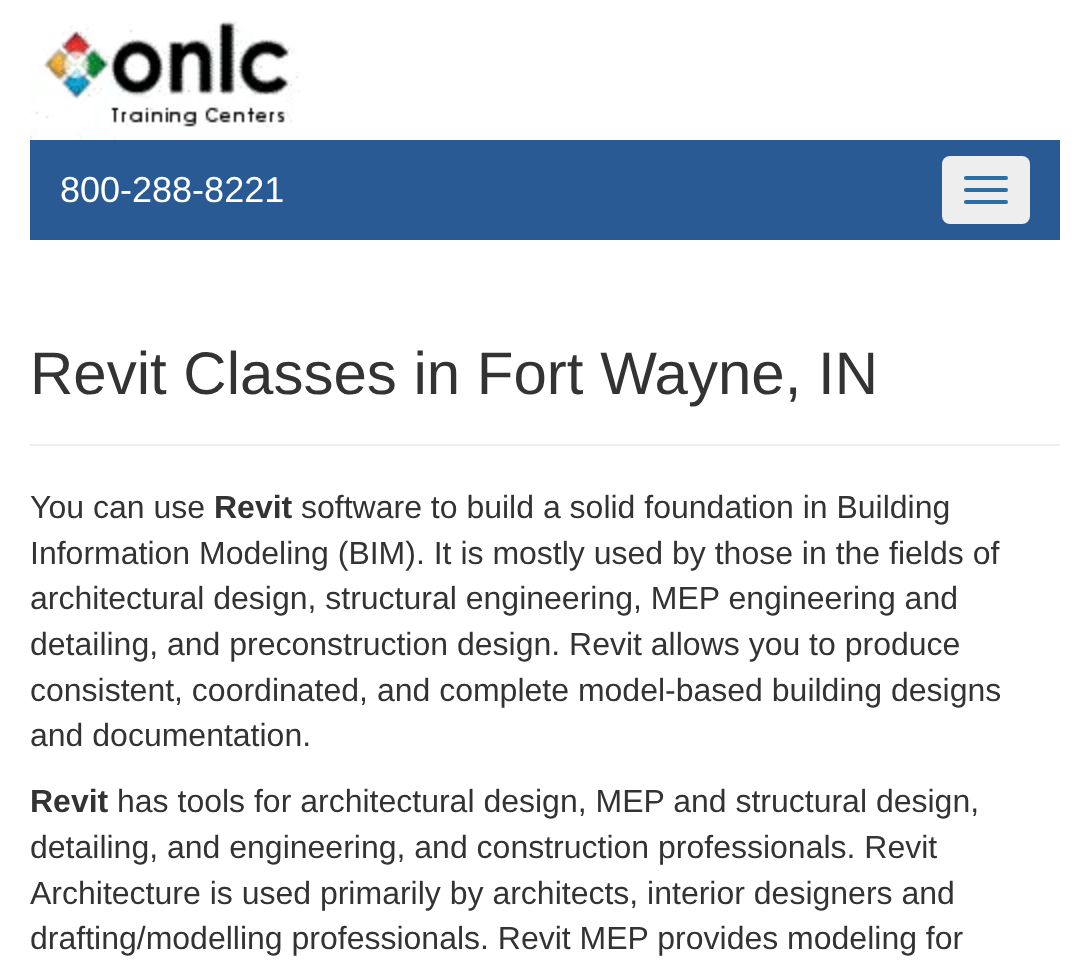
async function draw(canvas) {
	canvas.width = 1090;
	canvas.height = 960;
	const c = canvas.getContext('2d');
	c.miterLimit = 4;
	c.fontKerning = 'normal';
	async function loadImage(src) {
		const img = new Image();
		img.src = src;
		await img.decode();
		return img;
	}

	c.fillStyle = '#fff';
	c.fillRect(0, 0, 1090, 960);
	c.drawImage(await loadImage('img1.png'), 30, 21, 270, 119);
	c.fillStyle = '#295a94';
	c.fillRect(30, 140, 1030, 100);
	c.font = '36px Liberation Sans';
	c.fillStyle = '#fff';
	c.fillText('800-288-8221', 60, 202);
	c.fillStyle = '#eee';
	c.beginPath();
	c.roundRect(942, 156, 88, 68, 8);
	c.fill();
	c.fillStyle = '#2c6da4';
	c.beginPath();
	c.roundRect(964, 176, 44, 4, 2);
	c.fill();
	c.beginPath();
	c.roundRect(964, 188, 44, 4, 2);
	c.fill();
	c.beginPath();
	c.roundRect(964, 200, 44, 4, 2);
	c.fill();
	c.fillStyle = '#eee';
	c.fillRect(30, 444, 1030, 2);
	c.font = '60px Liberation Sans';
	c.fillStyle = '#333';
	c.fillText('Revit Classes in Fort Wayne, IN', 30, 394);
	c.font = '32px Liberation Sans';
	c.fillText('You can use', 30, 518);
	c.font = 'bold 32px Liberation Sans';
	c.fillText('Revit', 214, 518);
	c.font = '32px Liberation Sans';
	for (const [text, x, y] of [
		['software to build a solid foundation in Building', 301, 518],
		['Information Modeling (BIM). It is mostly used by those in the fields of', 30, 564],
		['architectural design, structural engineering, MEP engineering and', 30, 609],
		['detailing, and preconstruction design. Revit allows you to produce', 30, 655],
		['consistent, coordinated, and complete model-based building designs', 30, 701],
		['and documentation.', 30, 746],
	]) {
		c.fillText(text, x, y);
	}
	c.font = 'bold 32px Liberation Sans';
	c.fillText('Revit', 30, 812);
	c.font = '32px Liberation Sans';
	for (const [text, x, y] of [
		['has tools for architectural design, MEP and structural design,', 117, 812],
		['detailing, and engineering, and construction professionals. Revit', 30, 858],
		['Architecture is used primarily by architects, interior designers and', 30, 904],
		['drafting/modelling professionals. Revit MEP provides modeling for', 30, 949],
	]) {
		c.fillText(text, x, y);
	}
}

draw(document.querySelector('canvas'));
